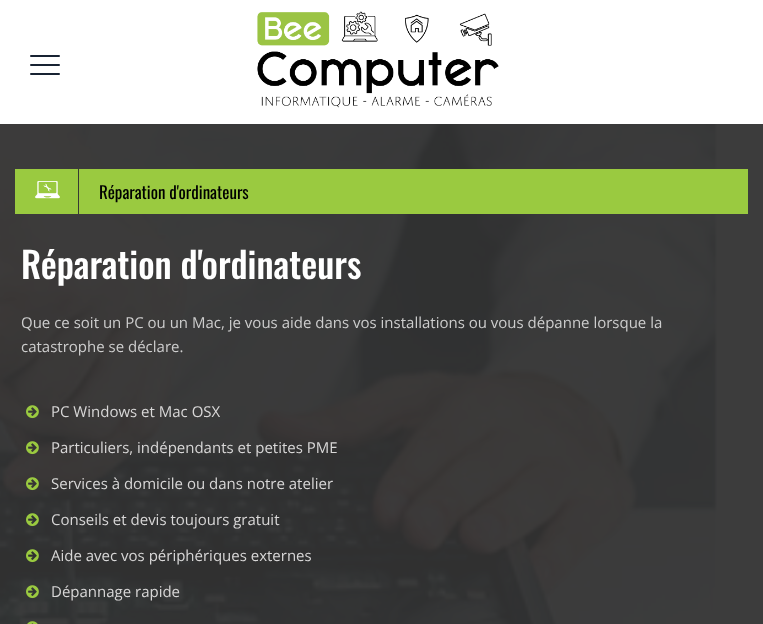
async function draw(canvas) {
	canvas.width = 763;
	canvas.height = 624;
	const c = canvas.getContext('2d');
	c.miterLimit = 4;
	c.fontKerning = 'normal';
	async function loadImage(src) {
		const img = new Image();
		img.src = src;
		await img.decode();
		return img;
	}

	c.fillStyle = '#fff';
	c.fillRect(0, 0, 763, 624);
	c.fillStyle = '#182333';
	c.beginPath();
	c.roundRect(30, 64, 30, 2, 1);
	c.fill();
	c.beginPath();
	c.roundRect(30, 55, 30, 2, 1);
	c.fill();
	c.beginPath();
	c.roundRect(30, 73, 30, 2, 1);
	c.fill();
	c.drawImage(await loadImage('img1.png'), 257, 11, 242, 97);
	c.drawImage(await loadImage('img2.png'), 0, 124, 763, 500);
	c.fillStyle = '#9aca40';
	c.fillRect(15, 169, 733, 45);
	c.drawImage(await loadImage('img3.png'), 35, 181, 25, 18);
	c.fillStyle = '#373a33';
	c.fillRect(78, 169, 1, 45);
	c.font = '17px Oswald';
	c.fillStyle = '#000';
	c.fillText('Réparation d\'ordinateurs', 99, 199);
	c.font = '500 36px Oswald';
	c.fillStyle = '#fff';
	c.fillText('Réparation d\'ordinateurs', 21, 279);
	c.font = '15px Open Sans';
	c.fillStyle = '#cdcdcd';
	c.fillText('Que ce soit un PC ou un Mac, je vous aide dans vos installations ou vous dépanne lorsque la', 21, 328);
	c.fillText('catastrophe se déclare.', 21, 352);
	c.drawImage(await loadImage('img4.png'), 26, 405, 13, 14);
	c.fillStyle = '#d8d7d7';
	c.fillText('PC Windows et Mac OSX', 51, 417);
	c.drawImage(await loadImage('img5.png'), 26, 441, 13, 14);
	c.fillText('Particuliers, indépendants et petites PME', 51, 453);
	c.drawImage(await loadImage('img6.png'), 26, 477, 13, 14);
	c.fillText('Services à domicile ou dans notre atelier', 51, 489);
	c.drawImage(await loadImage('img7.png'), 26, 513, 13, 14);
	c.fillText('Conseils et devis toujours gratuit', 51, 525);
	c.drawImage(await loadImage('img8.png'), 26, 549, 13, 14);
	c.fillText('Aide avec vos périphériques externes', 51, 561);
	c.drawImage(await loadImage('img9.png'), 26, 585, 13, 14);
	c.fillText('Dépannage rapide', 51, 597);
	c.drawImage(await loadImage('img10.png'), 27, 621, 11, 3);
}

draw(document.querySelector('canvas'));
